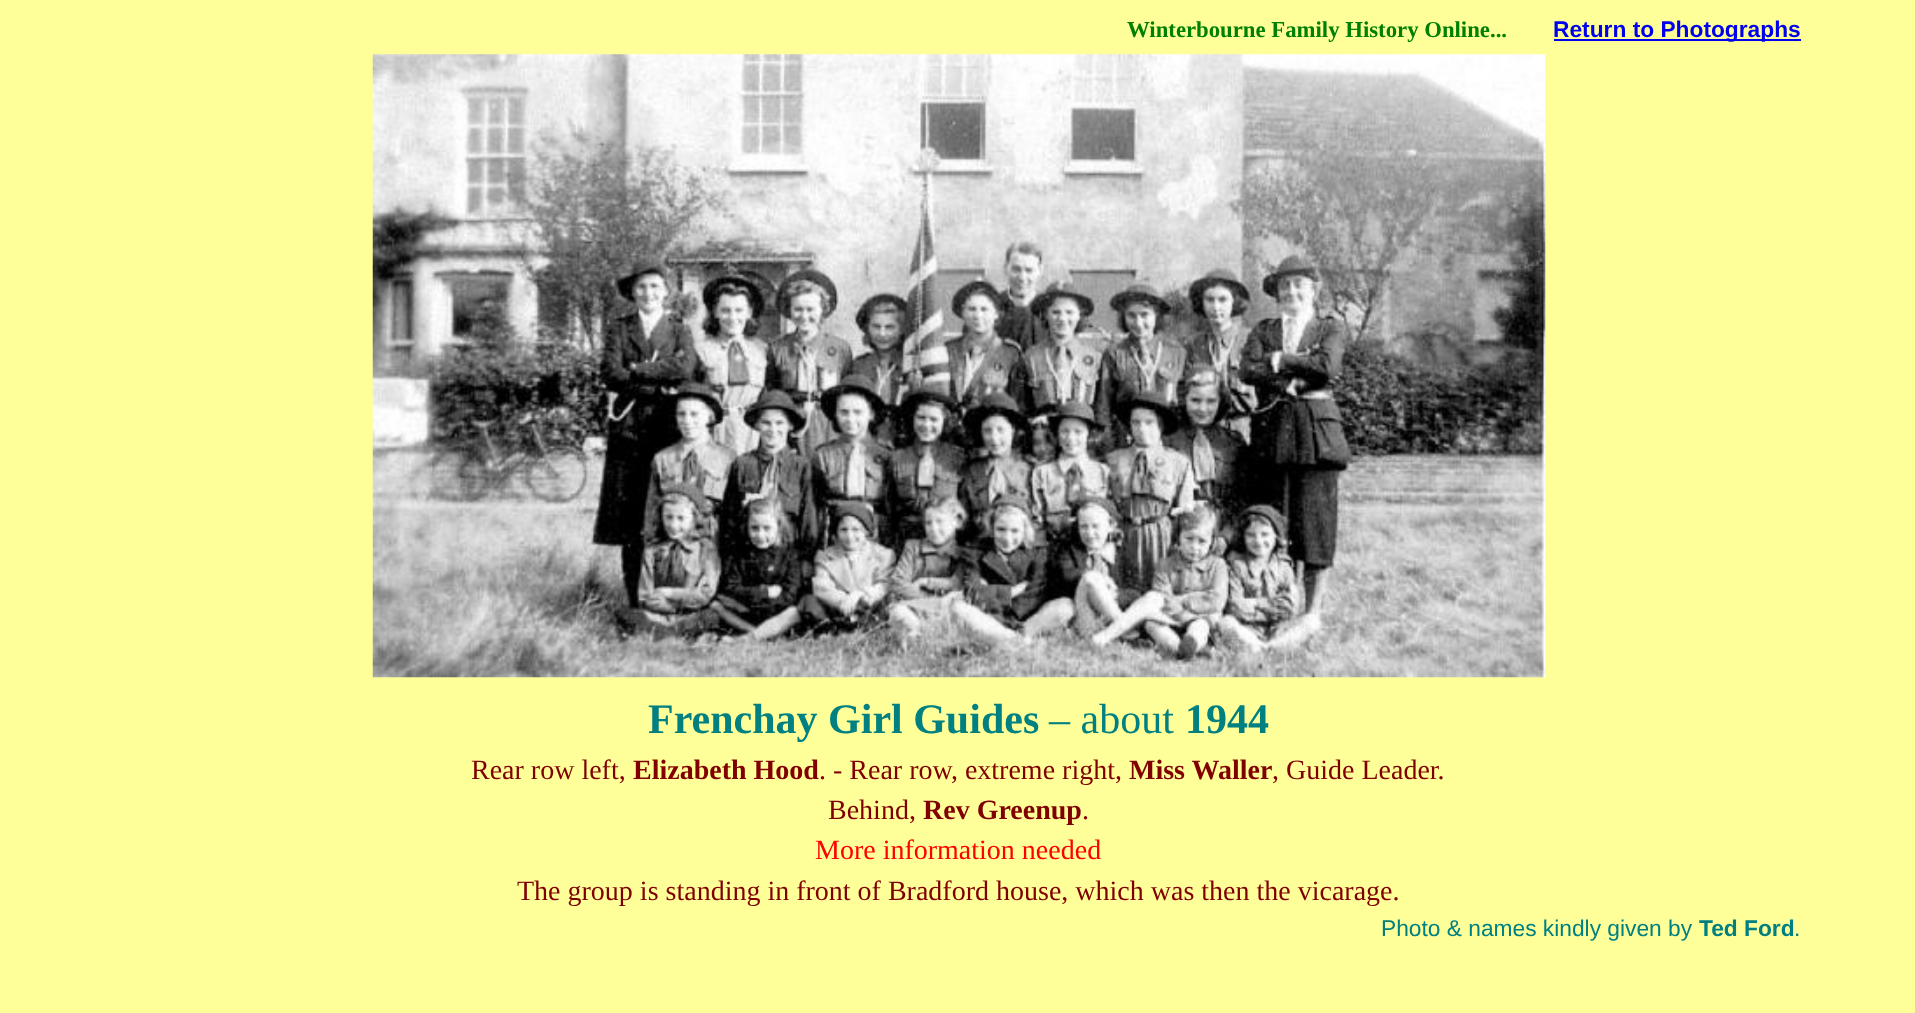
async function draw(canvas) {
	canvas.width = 1915;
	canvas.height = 1013;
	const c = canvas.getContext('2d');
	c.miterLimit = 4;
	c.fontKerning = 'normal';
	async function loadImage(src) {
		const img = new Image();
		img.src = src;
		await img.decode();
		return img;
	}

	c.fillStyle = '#ff9';
	c.fillRect(0, 0, 1915, 1013);
	c.font = 'bold 22.75px Liberation Serif';
	c.fillStyle = '#008000';
	c.fillText('Winterbourne Family History Online...', 1127, 37);
	c.fillStyle = '#00e';
	c.fillRect(1554, 39, 247, 2);
	c.font = 'bold 22.75px Liberation Sans';
	c.fillText('Return to Photographs', 1553, 37);
	c.drawImage(await loadImage('img1.png'), 372, 54, 1174, 624);
	c.font = 'bold 42px Liberation Serif';
	c.fillStyle = '#008080';
	c.fillText('Frenchay Girl Guides', 648, 733);
	c.font = '42px Liberation Serif';
	c.fillText('– about', 1049, 733);
	c.font = 'bold 42px Liberation Serif';
	c.fillText('1944', 1185, 733);
	c.font = '28px Liberation Serif';
	c.fillStyle = '#800000';
	c.fillText('Rear row left,', 471, 779);
	c.font = 'bold 28px Liberation Serif';
	c.fillText('Elizabeth Hood', 633, 779);
	c.font = '28px Liberation Serif';
	c.fillText('. - Rear row, extreme right,', 819, 779);
	c.font = 'bold 28px Liberation Serif';
	c.fillText('Miss Waller', 1129, 779);
	c.font = '28px Liberation Serif';
	c.fillText(', Guide Leader.', 1272, 779);
	c.fillText('Behind,', 828, 819);
	c.font = 'bold 28px Liberation Serif';
	c.fillText('Rev Greenup', 923, 819);
	c.font = '28px Liberation Serif';
	c.fillText('.', 1082, 819);
	c.fillStyle = '#f00';
	c.fillText('More information needed', 815, 859);
	c.fillStyle = '#800000';
	c.fillText('The group is standing in front of Bradford house, which was then the vicarage.', 517, 900);
	c.font = '22.75px Liberation Sans';
	c.fillStyle = '#008080';
	c.fillText('Photo & names kindly given by', 1381, 936);
	c.font = 'bold 22.75px Liberation Sans';
	c.fillText('Ted Ford', 1699, 936);
	c.font = '22.75px Liberation Sans';
	c.fillText('.', 1794, 936);
}

draw(document.querySelector('canvas'));
